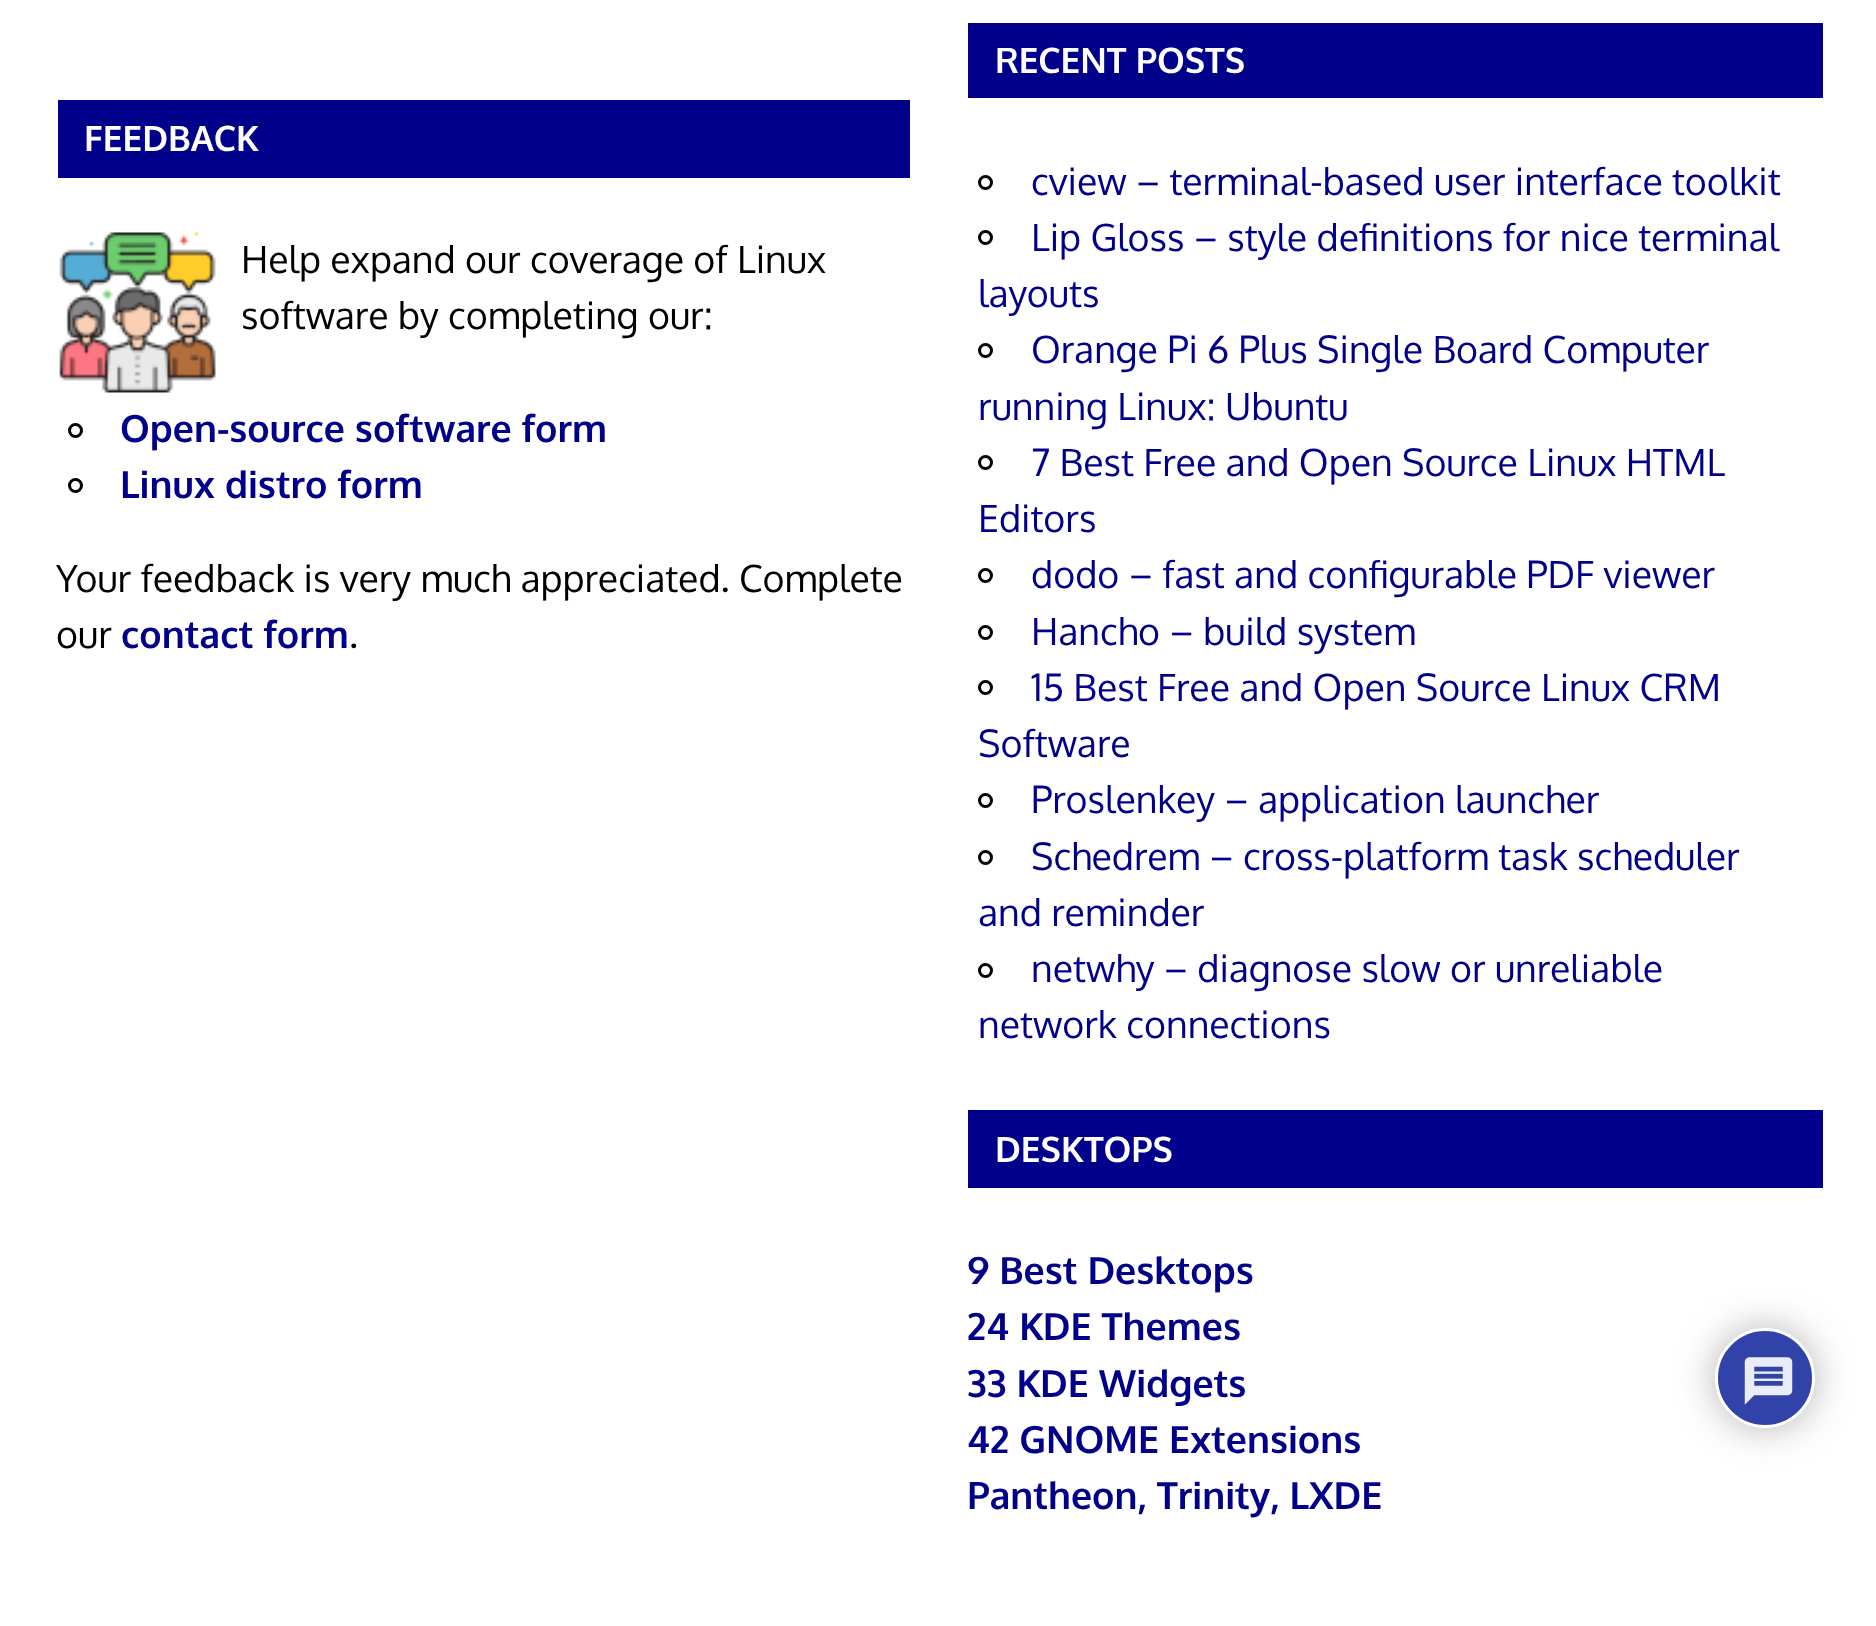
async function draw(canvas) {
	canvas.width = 1876;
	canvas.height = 1626;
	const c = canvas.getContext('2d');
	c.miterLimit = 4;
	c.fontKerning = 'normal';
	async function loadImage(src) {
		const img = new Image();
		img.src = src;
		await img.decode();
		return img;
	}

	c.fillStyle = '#fff';
	c.fillRect(0, 0, 1876, 1626);
	c.fillStyle = '#00008b';
	c.fillRect(58, 100, 852, 78);
	c.font = 'bold 35px Oxygen';
	c.fillStyle = '#fff';
	c.fillText('FEEDBACK', 84, 151);
	c.drawImage(await loadImage('img1.png'), 59, 232, 157, 161);
	c.font = '37.5px Oxygen';
	c.fillStyle = '#000';
	c.fillText('Help expand our coverage of Linux', 241, 273);
	c.fillText('software by completing our:', 241, 329);
	c.beginPath();
	c.arc(75.5, 430.5, 6, 0, 2 * Math.PI);
	c.strokeStyle = '#000';
	c.lineWidth = 3;
	c.stroke();
	c.font = 'bold 37.5px Oxygen';
	c.fillStyle = '#00008b';
	c.fillText('Open-source software form', 120, 442);
	c.beginPath();
	c.arc(75.5, 485.5, 6, 0, 2 * Math.PI);
	c.stroke();
	c.fillText('Linux distro form', 120, 498);
	c.font = '37.5px Oxygen';
	c.fillStyle = '#000';
	c.fillText('Your feedback is very much appreciated. Complete', 56, 592);
	c.fillText('our', 56, 648);
	c.font = 'bold 37.5px Oxygen';
	c.fillStyle = '#00008b';
	c.fillText('contact form', 121, 648);
	c.font = '37.5px Oxygen';
	c.fillStyle = '#000';
	c.fillText('.', 349, 648);
	c.fillStyle = '#00008b';
	c.fillRect(968, 23, 855, 75);
	c.font = 'bold 35px Oxygen';
	c.fillStyle = '#fff';
	c.fillText('RECENT POSTS', 995, 73);
	c.beginPath();
	c.arc(985.5, 182.5, 6, 0, 2 * Math.PI);
	c.stroke();
	c.font = '37.5px Oxygen';
	c.fillStyle = '#00008b';
	c.fillText('cview – terminal-based user interface toolkit', 1031, 195);
	c.beginPath();
	c.arc(985.5, 237.5, 6, 0, 2 * Math.PI);
	c.stroke();
	c.fillText('Lip Gloss – style definitions for nice terminal', 1031, 251);
	c.fillText('layouts', 978, 307);
	c.beginPath();
	c.arc(985.5, 350.5, 6, 0, 2 * Math.PI);
	c.stroke();
	c.fillText('Orange Pi 6 Plus Single Board Computer', 1031, 363);
	c.fillText('running Linux: Ubuntu', 978, 420);
	c.beginPath();
	c.arc(985.5, 462.5, 6, 0, 2 * Math.PI);
	c.stroke();
	c.fillText('7 Best Free and Open Source Linux HTML', 1031, 476);
	c.fillText('Editors', 978, 532);
	c.beginPath();
	c.arc(985.5, 575.5, 6, 0, 2 * Math.PI);
	c.stroke();
	c.fillText('dodo – fast and configurable PDF viewer', 1031, 588);
	c.beginPath();
	c.arc(985.5, 632.5, 6, 0, 2 * Math.PI);
	c.stroke();
	c.fillText('Hancho – build system', 1031, 645);
	c.beginPath();
	c.arc(985.5, 687.5, 6, 0, 2 * Math.PI);
	c.stroke();
	c.fillText('15 Best Free and Open Source Linux CRM', 1031, 701);
	c.fillText('Software', 978, 757);
	c.beginPath();
	c.arc(985.5, 800.5, 6, 0, 2 * Math.PI);
	c.stroke();
	c.fillText('Proslenkey – application launcher', 1031, 813);
	c.beginPath();
	c.arc(985.5, 857.5, 6, 0, 2 * Math.PI);
	c.stroke();
	c.fillText('Schedrem – cross-platform task scheduler', 1031, 870);
	c.fillText('and reminder', 978, 926);
	c.beginPath();
	c.arc(985.5, 970.5, 6, 0, 2 * Math.PI);
	c.stroke();
	c.fillText('netwhy – diagnose slow or unreliable', 1031, 982);
	c.fillText('network connections', 978, 1038);
	c.fillRect(968, 1110, 855, 78);
	c.font = 'bold 35px Oxygen';
	c.fillStyle = '#fff';
	c.fillText('DESKTOPS', 995, 1162);
	c.font = 'bold 37.5px Oxygen';
	c.fillStyle = '#00008b';
	for (const [text, x, y] of [
		['9 Best Desktops', 967, 1284],
		['24 KDE Themes', 967, 1340],
		['33 KDE Widgets', 967, 1397],
		['42 GNOME Extensions', 967, 1453],
		['Pantheon, Trinity, LXDE', 967, 1509],
	]) {
		c.fillText(text, x, y);
	}
	c.fillStyle = '#b3b3b3';
	c.filter = 'blur(19px)';
	c.beginPath();
	c.roundRect(1715, 1328, 100, 100, 50);
	c.fill();
	c.filter = 'none';
	c.fillStyle = '#3143a8';
	c.beginPath();
	c.arc(1765, 1378, 48.5, 0, 2 * Math.PI);
	c.fill();
	c.strokeStyle = '#fff';
	c.stroke();
	c.drawImage(await loadImage('img2.png'), 1744, 1357, 49, 48);
}

draw(document.querySelector('canvas'));
